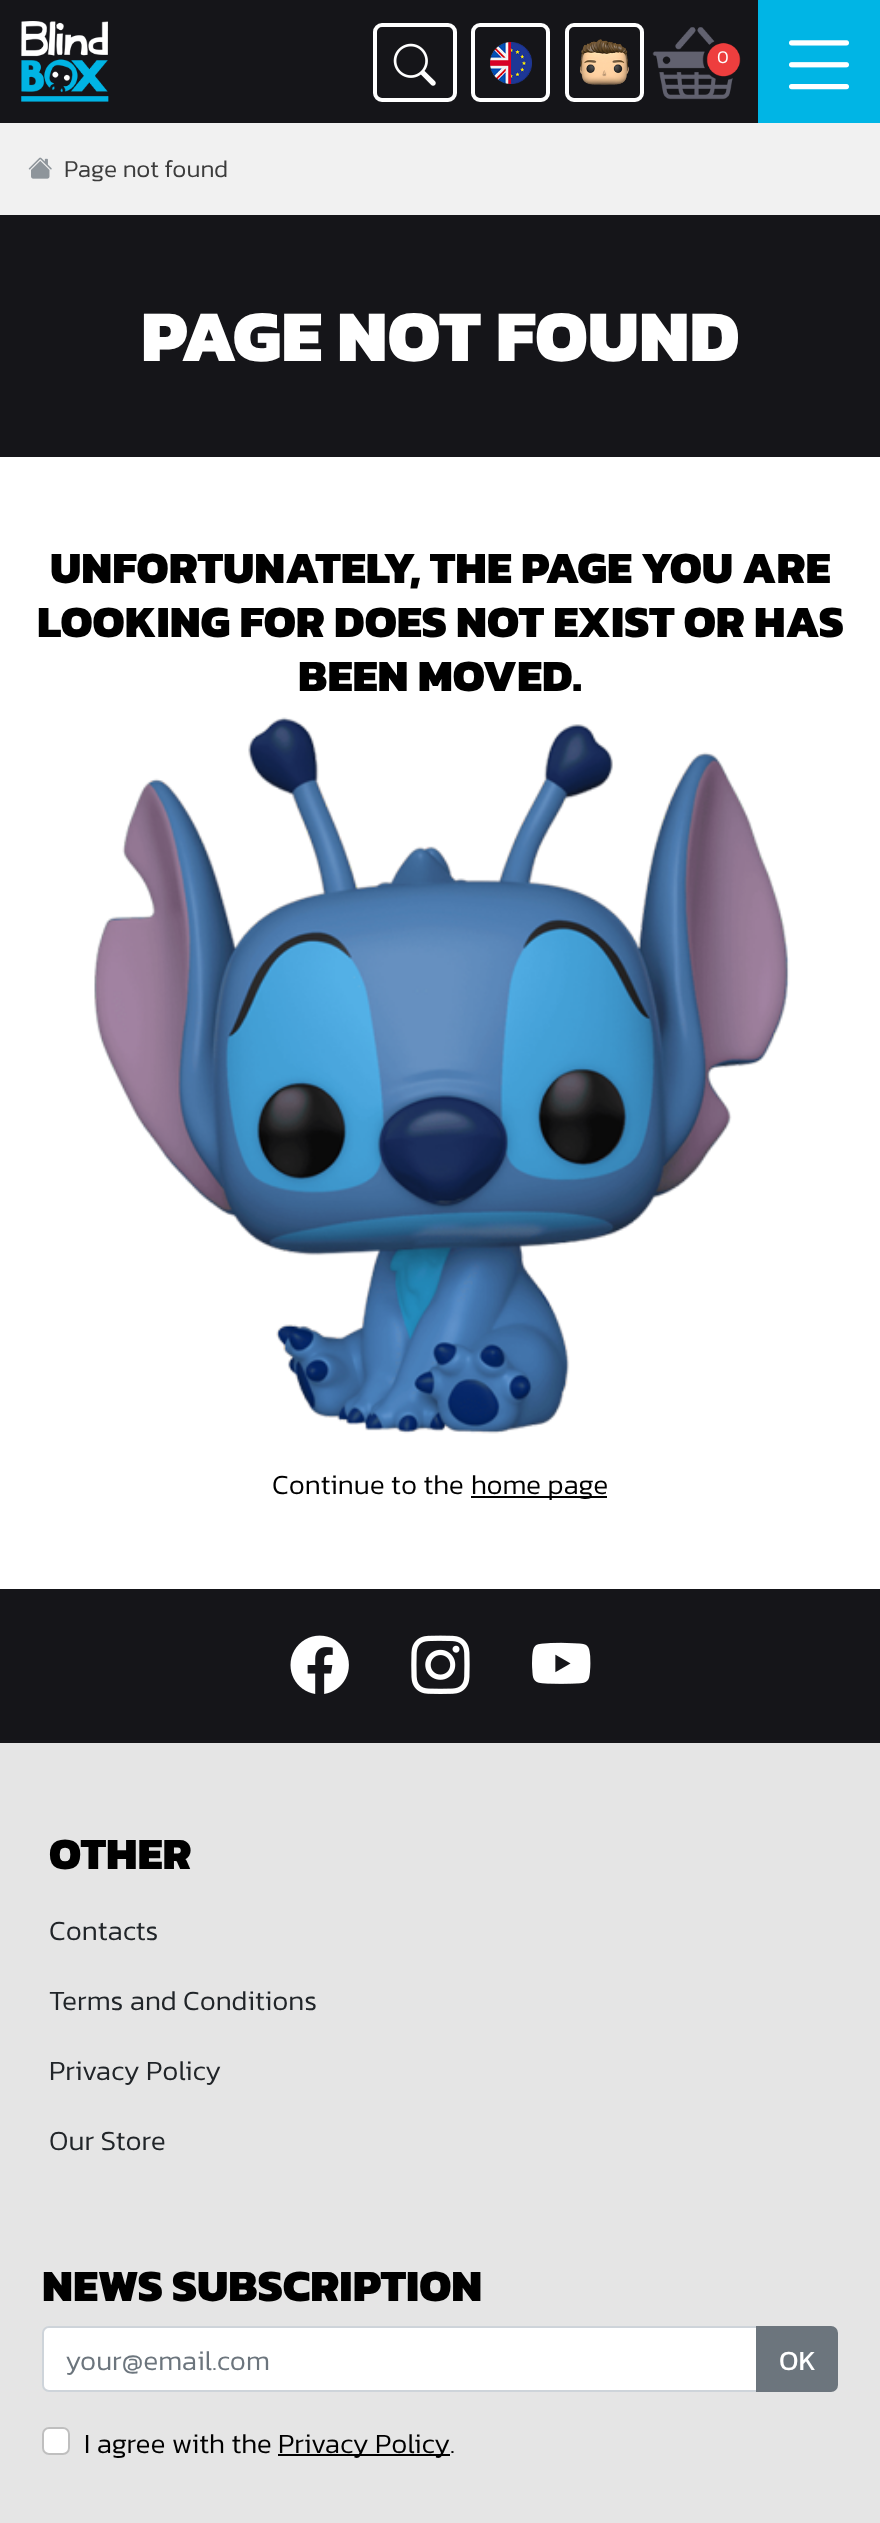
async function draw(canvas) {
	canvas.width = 880;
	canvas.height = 2523;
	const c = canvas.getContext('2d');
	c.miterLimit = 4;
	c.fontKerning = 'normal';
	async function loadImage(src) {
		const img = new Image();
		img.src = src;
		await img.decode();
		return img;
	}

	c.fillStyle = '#fff';
	c.fillRect(0, 0, 880, 2523);
	c.fillStyle = '#151519';
	c.fillRect(0, 0, 758, 123);
	c.drawImage(await loadImage('img1.png'), 21, 21, 88, 81);
	c.beginPath();
	c.roundRect(375, 25, 80, 75, 7);
	c.strokeStyle = '#fff';
	c.lineWidth = 4;
	c.stroke();
	c.drawImage(await loadImage('img2.png'), 393, 43, 43, 43);
	c.drawImage(await loadImage('img3.png'), 490, 42, 42, 42);
	c.beginPath();
	c.roundRect(473, 25, 75, 75, 7);
	c.stroke();
	c.drawImage(await loadImage('img4.png'), 580, 39, 49, 46);
	c.beginPath();
	c.roundRect(567, 25, 75, 75, 7);
	c.stroke();
	c.drawImage(await loadImage('img5.png'), 652, 27, 89, 73);
	c.font = '300 18px Kanit';
	c.fillStyle = '#fff';
	c.fillText('0', 717, 63);
	c.fillStyle = '#00b5e5';
	c.fillRect(758, 0, 122, 123);
	c.drawImage(await loadImage('img6.png'), 789, 40, 60, 50);
	c.fillStyle = '#f1f1f1';
	c.fillRect(0, 123, 880, 92);
	c.drawImage(await loadImage('img7.png'), 28, 157, 24, 22);
	c.font = '300 24.5px Kanit';
	c.fillStyle = '#3c3c3c';
	c.fillText('Page not found', 64, 177);
	c.fillStyle = '#151519';
	c.fillRect(0, 215, 880, 242);
	c.font = '800 73.5px Kanit';
	c.fillStyle = '#fff';
	c.fillText('PAGE NOT FOUND', 141, 361);
	c.font = '800 45px Kanit';
	c.fillStyle = '#000';
	for (const [text, x, y] of [
		['UNFORTUNATELY, THE PAGE YOU ARE', 50, 583],
		['LOOKING FOR DOES NOT EXIST OR HAS', 37, 637],
		['BEEN MOVED.', 298, 691],
	]) {
		c.fillText(text, x, y);
	}
	c.drawImage(await loadImage('img8.png'), 94, 717, 696, 717);
	c.font = '300 28px Kanit';
	c.fillText('Continue to the', 272, 1494);
	c.fillRect(471, 1496, 136, 2);
	c.fillText('home page', 471, 1494);
	c.fillStyle = '#151519';
	c.fillRect(0, 1589, 880, 154);
	c.drawImage(await loadImage('img9.png'), 290, 1635, 59, 59);
	c.drawImage(await loadImage('img10.png'), 411, 1635, 59, 59);
	c.drawImage(await loadImage('img11.png'), 532, 1642, 59, 42);
	c.fillStyle = '#e5e5e5';
	c.fillRect(0, 1743, 880, 780);
	c.font = '800 45px Kanit';
	c.fillStyle = '#000';
	c.fillText('OTHER', 49, 1869);
	c.font = '300 28px Kanit';
	c.fillStyle = '#212529';
	for (const [text, x, y] of [
		['Contacts', 49, 1940],
		['Terms and Conditions', 49, 2010],
		['Privacy Policy', 49, 2080],
		['Our Store', 49, 2150],
	]) {
		c.fillText(text, x, y);
	}
	c.font = '800 45px Kanit';
	c.fillStyle = '#000';
	c.fillText('NEWS SUBSCRIPTION', 42, 2301);
	c.fillStyle = '#fff';
	c.beginPath();
	c.roundRect(43, 2327, 714, 64, [6, 0, 0, 6]);
	c.fill();
	c.strokeStyle = '#ced4da';
	c.lineWidth = 2;
	c.stroke();
	c.font = '300 28px Kanit';
	c.fillStyle = '#6c757d';
	c.fillText('your@email.com', 65, 2370);
	c.beginPath();
	c.roundRect(757, 2327, 80, 64, [0, 6, 6, 0]);
	c.fill();
	c.strokeStyle = '#6c757d';
	c.stroke();
	c.font = '28px Kanit';
	c.fillStyle = '#fff';
	c.fillText('OK', 779, 2370);
	c.beginPath();
	c.roundRect(42, 2427, 28, 28, 7);
	c.fill();
	c.beginPath();
	c.roundRect(43, 2428, 26, 26, 6);
	c.strokeStyle = '#00000040';
	c.stroke();
	c.font = '300 28px Kanit';
	c.fillStyle = '#000';
	c.fillText('I agree with the', 84, 2453);
	c.fillRect(278, 2454, 172, 2);
	c.fillText('Privacy Policy.', 278, 2453);
}

draw(document.querySelector('canvas'));
